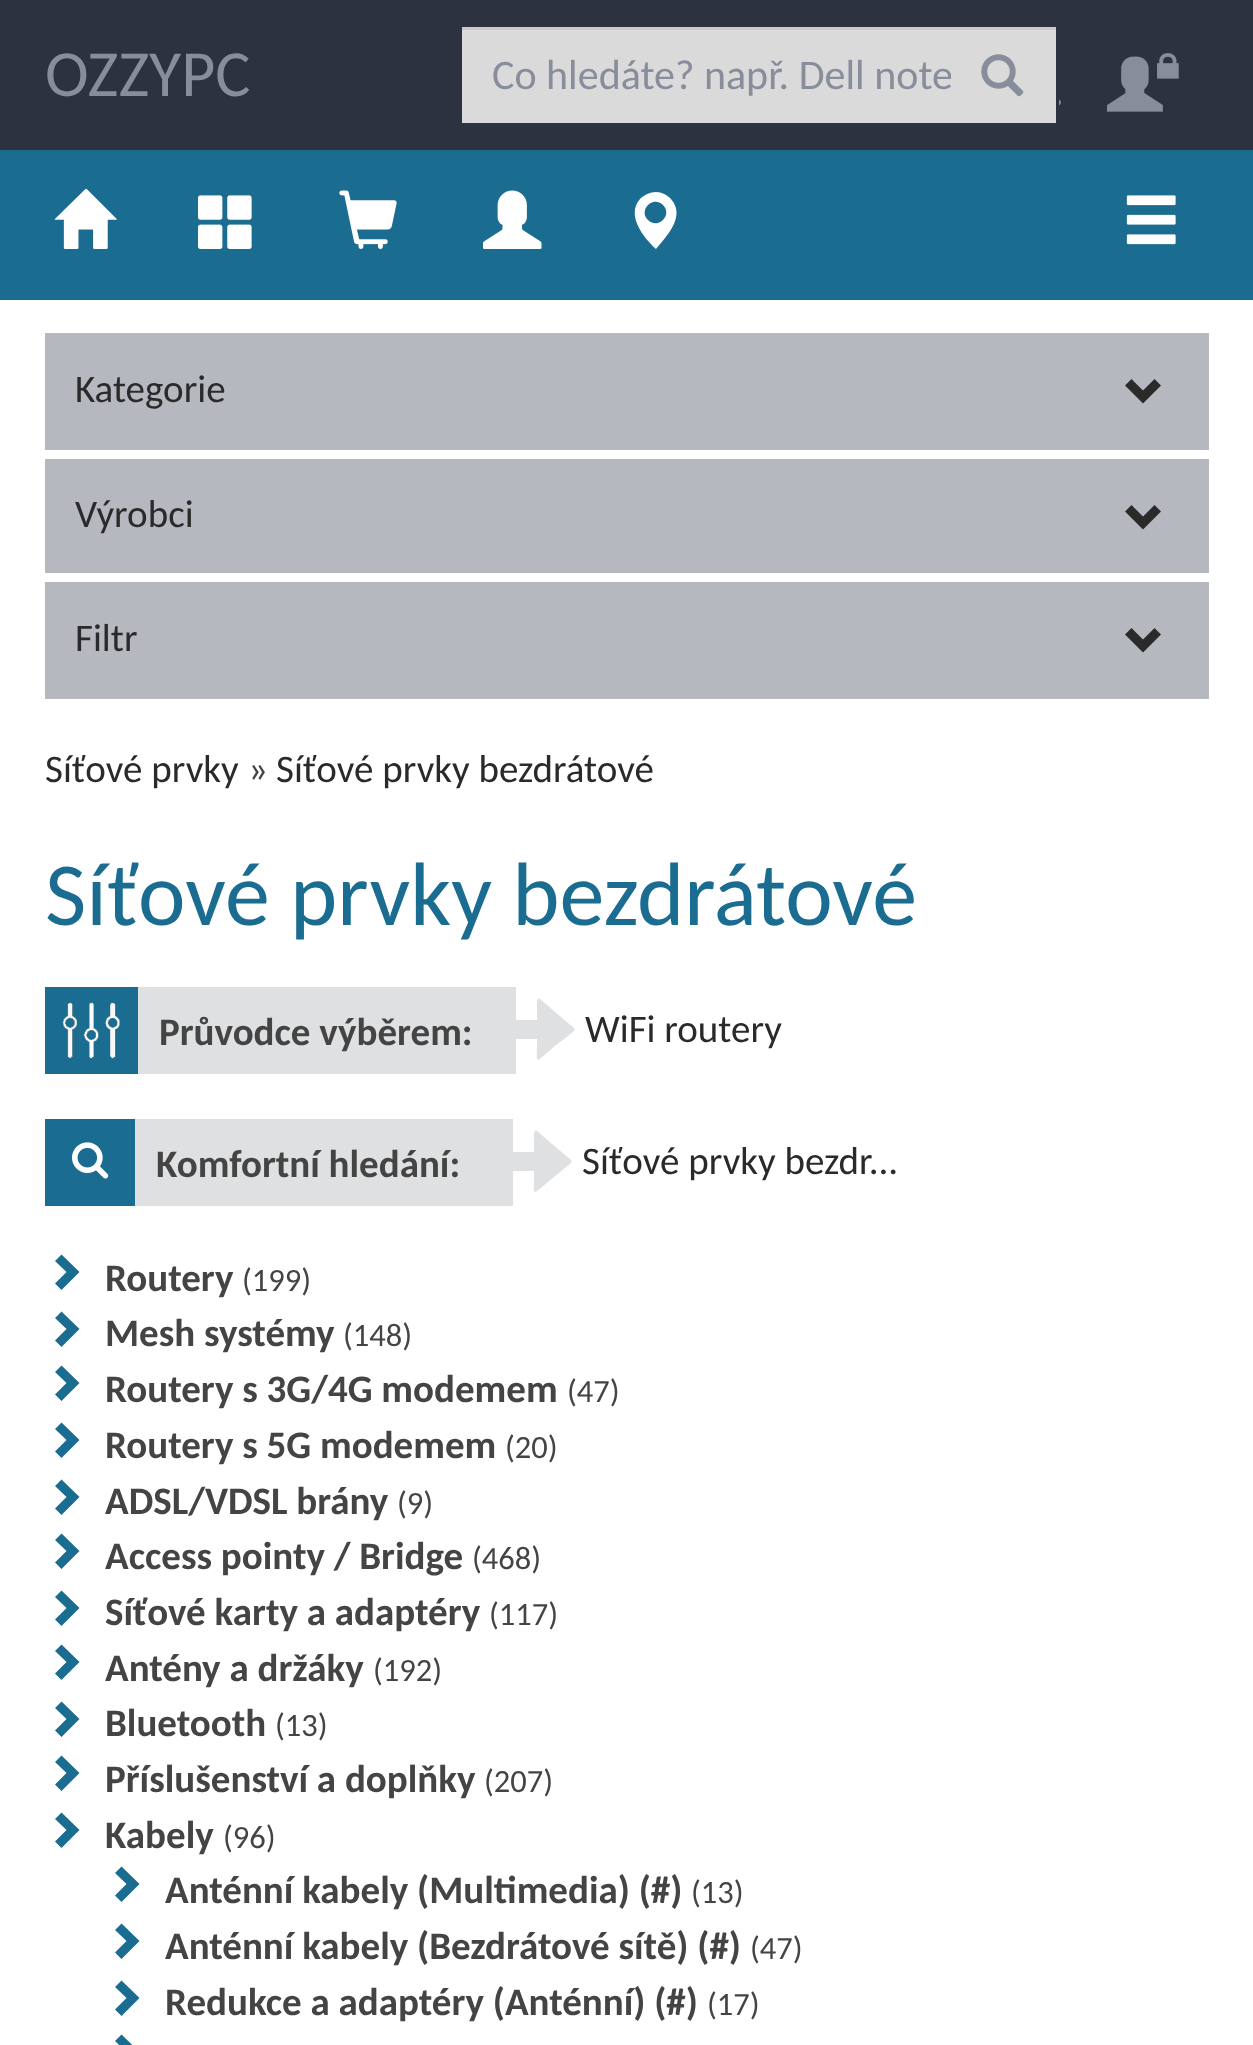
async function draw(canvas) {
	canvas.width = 1253;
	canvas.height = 2045;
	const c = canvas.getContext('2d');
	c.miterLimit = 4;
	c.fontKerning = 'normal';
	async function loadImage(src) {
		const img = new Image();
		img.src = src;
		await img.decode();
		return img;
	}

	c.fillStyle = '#fff';
	c.fillRect(0, 0, 1253, 2045);
	c.fillStyle = '#2c323f';
	c.fillRect(0, 0, 1253, 150);
	c.font = '66px Carlito';
	c.fillStyle = '#888d9b';
	c.fillText('OZZYPC', 45, 96);
	c.fillStyle = '#dbdada';
	c.fillRect(462, 30, 594, 93);
	c.fillStyle = '#cbcaca';
	c.fillRect(462, 27, 594, 3);
	c.save();
	c.beginPath();
	c.rect(492, 51, 459, 51);
	c.clip();
	c.font = '42px Carlito';
	c.fillStyle = '#888d9b';
	c.fillText('Co hledáte? např. Dell note', 492, 89);
	c.restore();
	c.drawImage(await loadImage('img1.png'), 981, 54, 43, 43);
	c.drawImage(await loadImage('img2.png'), 1107, 53, 72, 59);
	c.drawImage(await loadImage('img3.png'), 1059, 99, 2, 7);
	c.fillStyle = '#1a6c91';
	c.fillRect(0, 150, 1253, 150);
	c.drawImage(await loadImage('img4.png'), 54, 188, 63, 61);
	c.drawImage(await loadImage('img5.png'), 198, 195, 54, 54);
	c.drawImage(await loadImage('img6.png'), 339, 190, 58, 59);
	c.drawImage(await loadImage('img7.png'), 483, 190, 59, 59);
	c.fillStyle = '#fff';
	c.beginPath();
	c.moveTo(656, 192);
	c.bezierCurveTo(662, 192, 667, 195, 671, 199);
	c.bezierCurveTo(686, 216, 667, 236, 656, 249);
	c.bezierCurveTo(643, 237, 626, 215, 640, 199);
	c.bezierCurveTo(644, 195, 650, 192, 656, 192);
	c.closePath();
	c.moveTo(663, 205);
	c.bezierCurveTo(653, 195, 638, 210, 648, 220);
	c.bezierCurveTo(658, 230, 673, 215, 663, 205);
	c.closePath();
	c.fill();
	c.drawImage(await loadImage('img8.png'), 1126, 195, 50, 50);
	c.fillStyle = '#b5b9bf';
	c.fillRect(45, 333, 1164, 117);
	c.font = '39px Carlito';
	c.fillStyle = '#2a2a2a';
	c.fillText('Kategorie', 75, 402);
	c.beginPath();
	c.moveTo(1161, 385.5);
	c.lineTo(1143, 403.5);
	c.lineTo(1125, 385.5);
	c.lineTo(1131.5, 379);
	c.lineTo(1143, 390.5);
	c.lineTo(1154.5, 379);
	c.closePath();
	c.fill();
	c.fillStyle = '#b5b9bf';
	c.fillRect(45, 459, 1164, 114);
	c.fillStyle = '#2a2a2a';
	c.fillText('Výrobci', 75, 527);
	c.beginPath();
	c.moveTo(1161, 511.5);
	c.lineTo(1143, 529.5);
	c.lineTo(1125, 511.5);
	c.lineTo(1131.5, 505);
	c.lineTo(1143, 516.5);
	c.lineTo(1154.5, 505);
	c.closePath();
	c.fill();
	c.fillStyle = '#b5b9bf';
	c.fillRect(45, 582, 1164, 117);
	c.fillStyle = '#2a2a2a';
	c.fillText('Filtr', 75, 651);
	c.beginPath();
	c.moveTo(1161, 634.5);
	c.lineTo(1143, 652.5);
	c.lineTo(1125, 634.5);
	c.lineTo(1131.5, 628);
	c.lineTo(1143, 639.5);
	c.lineTo(1154.5, 628);
	c.closePath();
	c.fill();
	c.fillText('Síťové prvky', 45, 782);
	c.fillStyle = '#444';
	c.fillText('»', 248, 782);
	c.fillStyle = '#2a2a2a';
	c.fillText('Síťové prvky bezdrátové', 276, 782);
	c.font = '90px Carlito';
	c.fillStyle = '#1a6c91';
	c.fillText('Síťové prvky bezdrátové', 45, 925);
	c.fillRect(45, 987, 93, 87);
	c.drawImage(await loadImage('img9.png'), 63, 1002, 57, 57);
	c.fillStyle = '#dee0e2';
	c.fillRect(138, 987, 378, 87);
	c.font = 'bold 39px Carlito';
	c.fillStyle = '#444';
	c.fillText('Průvodce výběrem:', 159, 1045);
	c.fillStyle = '#dee0e2';
	c.beginPath();
	c.moveTo(540, 999);
	c.lineTo(568, 1023);
	c.bezierCurveTo(577, 1030, 577, 1029, 568, 1036);
	c.lineTo(556, 1045);
	c.bezierCurveTo(533, 1064, 537, 1067, 537, 1039);
	c.lineTo(507, 1039);
	c.bezierCurveTo(497, 1039, 498, 1039, 498, 1029);
	c.bezierCurveTo(498, 1019, 497, 1020, 507, 1020);
	c.lineTo(537, 1020);
	c.lineTo(537, 1007);
	c.bezierCurveTo(537, 1006, 536, 996, 540, 999);
	c.closePath();
	c.fill();
	c.font = '39px Carlito';
	c.fillStyle = '#2a2a2a';
	c.fillText('WiFi routery', 585, 1042);
	c.fillStyle = '#1a6c91';
	c.fillRect(45, 1119, 90, 87);
	c.drawImage(await loadImage('img10.png'), 72, 1142, 37, 37);
	c.fillStyle = '#dee0e2';
	c.fillRect(135, 1119, 378, 87);
	c.font = 'bold 39px Carlito';
	c.fillStyle = '#444';
	c.fillText('Komfortní hledání:', 156, 1177);
	c.fillStyle = '#dee0e2';
	c.beginPath();
	c.moveTo(537, 1131);
	c.lineTo(565, 1155);
	c.bezierCurveTo(574, 1162, 574, 1161, 565, 1168);
	c.lineTo(554, 1177);
	c.bezierCurveTo(530, 1196, 534, 1199, 534, 1171);
	c.lineTo(504, 1171);
	c.bezierCurveTo(494, 1171, 495, 1171, 495, 1161);
	c.bezierCurveTo(495, 1151, 494, 1152, 504, 1152);
	c.lineTo(534, 1152);
	c.lineTo(534, 1139);
	c.bezierCurveTo(534, 1138, 533, 1128, 537, 1131);
	c.closePath();
	c.fill();
	c.font = '39px Carlito';
	c.fillStyle = '#2a2a2a';
	c.fillText('Síťové prvky bezdr...', 582, 1174);
	c.fillStyle = '#1a6c91';
	c.beginPath();
	c.moveTo(79.5, 1272);
	c.lineTo(61.5, 1290);
	c.lineTo(55, 1283.5);
	c.lineTo(66.5, 1272);
	c.lineTo(55, 1261);
	c.lineTo(61.5, 1254.5);
	c.closePath();
	c.fill();
	c.font = 'bold 39px Carlito';
	c.fillStyle = '#444';
	c.fillText('Routery', 105, 1291);
	c.font = '32.5px Carlito';
	c.fillText('(199)', 242, 1291);
	c.fillStyle = '#1a6c91';
	c.beginPath();
	c.moveTo(79.5, 1329);
	c.lineTo(61.5, 1347);
	c.lineTo(55, 1340.5);
	c.lineTo(66.5, 1329);
	c.lineTo(55, 1318);
	c.lineTo(61.5, 1311.5);
	c.closePath();
	c.fill();
	c.font = 'bold 39px Carlito';
	c.fillStyle = '#444';
	c.fillText('Mesh systémy', 105, 1346);
	c.font = '32.5px Carlito';
	c.fillText('(148)', 343, 1346);
	c.fillStyle = '#1a6c91';
	c.beginPath();
	c.moveTo(79.5, 1383);
	c.lineTo(61.5, 1401);
	c.lineTo(55, 1394.5);
	c.lineTo(66.5, 1383);
	c.lineTo(55, 1372);
	c.lineTo(61.5, 1365.5);
	c.closePath();
	c.fill();
	c.font = 'bold 39px Carlito';
	c.fillStyle = '#444';
	c.fillText('Routery s 3G/4G modemem', 105, 1402);
	c.font = '32.5px Carlito';
	c.fillText('(47)', 567, 1402);
	c.fillStyle = '#1a6c91';
	c.beginPath();
	c.moveTo(79.5, 1440);
	c.lineTo(61.5, 1458);
	c.lineTo(55, 1451.5);
	c.lineTo(66.5, 1440);
	c.lineTo(55, 1429);
	c.lineTo(61.5, 1422.5);
	c.closePath();
	c.fill();
	c.font = 'bold 39px Carlito';
	c.fillStyle = '#444';
	c.fillText('Routery s 5G modemem', 105, 1458);
	c.font = '32.5px Carlito';
	c.fillText('(20)', 505, 1458);
	c.fillStyle = '#1a6c91';
	c.beginPath();
	c.moveTo(79.5, 1497);
	c.lineTo(61.5, 1515);
	c.lineTo(55, 1508.5);
	c.lineTo(66.5, 1497);
	c.lineTo(55, 1486);
	c.lineTo(61.5, 1479.5);
	c.closePath();
	c.fill();
	c.font = 'bold 39px Carlito';
	c.fillStyle = '#444';
	c.fillText('ADSL/VDSL brány', 105, 1514);
	c.font = '32.5px Carlito';
	c.fillText('(9)', 397, 1514);
	c.fillStyle = '#1a6c91';
	c.beginPath();
	c.moveTo(79.5, 1551);
	c.lineTo(61.5, 1569);
	c.lineTo(55, 1562.5);
	c.lineTo(66.5, 1551);
	c.lineTo(55, 1540);
	c.lineTo(61.5, 1533.5);
	c.closePath();
	c.fill();
	c.font = 'bold 39px Carlito';
	c.fillStyle = '#444';
	c.fillText('Access pointy / Bridge', 105, 1569);
	c.font = '32.5px Carlito';
	c.fillText('(468)', 472, 1569);
	c.fillStyle = '#1a6c91';
	c.beginPath();
	c.moveTo(79.5, 1608);
	c.lineTo(61.5, 1626);
	c.lineTo(55, 1619.5);
	c.lineTo(66.5, 1608);
	c.lineTo(55, 1597);
	c.lineTo(61.5, 1590.5);
	c.closePath();
	c.fill();
	c.font = 'bold 39px Carlito';
	c.fillStyle = '#444';
	c.fillText('Síťové karty a adaptéry', 105, 1625);
	c.font = '32.5px Carlito';
	c.fillText('(117)', 489, 1625);
	c.fillStyle = '#1a6c91';
	c.beginPath();
	c.moveTo(79.5, 1662);
	c.lineTo(61.5, 1680);
	c.lineTo(55, 1673.5);
	c.lineTo(66.5, 1662);
	c.lineTo(55, 1651);
	c.lineTo(61.5, 1644.5);
	c.closePath();
	c.fill();
	c.font = 'bold 39px Carlito';
	c.fillStyle = '#444';
	c.fillText('Antény a držáky', 105, 1681);
	c.font = '32.5px Carlito';
	c.fillText('(192)', 373, 1681);
	c.fillStyle = '#1a6c91';
	c.beginPath();
	c.moveTo(79.5, 1719);
	c.lineTo(61.5, 1737);
	c.lineTo(55, 1730.5);
	c.lineTo(66.5, 1719);
	c.lineTo(55, 1708);
	c.lineTo(61.5, 1701.5);
	c.closePath();
	c.fill();
	c.font = 'bold 39px Carlito';
	c.fillStyle = '#444';
	c.fillText('Bluetooth', 105, 1736);
	c.font = '32.5px Carlito';
	c.fillText('(13)', 275, 1736);
	c.fillStyle = '#1a6c91';
	c.beginPath();
	c.moveTo(79.5, 1773);
	c.lineTo(61.5, 1791);
	c.lineTo(55, 1784.5);
	c.lineTo(66.5, 1773);
	c.lineTo(55, 1762);
	c.lineTo(61.5, 1755.5);
	c.closePath();
	c.fill();
	c.font = 'bold 39px Carlito';
	c.fillStyle = '#444';
	c.fillText('Příslušenství a doplňky', 105, 1792);
	c.font = '32.5px Carlito';
	c.fillText('(207)', 484, 1792);
	c.fillStyle = '#1a6c91';
	c.beginPath();
	c.moveTo(79.5, 1830);
	c.lineTo(61.5, 1848);
	c.lineTo(55, 1841.5);
	c.lineTo(66.5, 1830);
	c.lineTo(55, 1819);
	c.lineTo(61.5, 1812.5);
	c.closePath();
	c.fill();
	c.font = 'bold 39px Carlito';
	c.fillStyle = '#444';
	c.fillText('Kabely', 105, 1848);
	c.font = '32.5px Carlito';
	c.fillText('(96)', 223, 1848);
	c.fillStyle = '#1a6c91';
	c.beginPath();
	c.moveTo(139.5, 1884);
	c.lineTo(121.5, 1902);
	c.lineTo(115, 1895.5);
	c.lineTo(126.5, 1884);
	c.lineTo(115, 1873);
	c.lineTo(121.5, 1866.5);
	c.closePath();
	c.fill();
	c.font = 'bold 39px Carlito';
	c.fillStyle = '#444';
	c.fillText('Anténní kabely (Multimedia) (#)', 165, 1903);
	c.font = '32.5px Carlito';
	c.fillText('(13)', 691, 1903);
	c.fillStyle = '#1a6c91';
	c.beginPath();
	c.moveTo(139.5, 1941);
	c.lineTo(121.5, 1959);
	c.lineTo(115, 1952.5);
	c.lineTo(126.5, 1941);
	c.lineTo(115, 1930);
	c.lineTo(121.5, 1923.5);
	c.closePath();
	c.fill();
	c.font = 'bold 39px Carlito';
	c.fillStyle = '#444';
	c.fillText('Anténní kabely (Bezdrátové sítě) (#)', 165, 1959);
	c.font = '32.5px Carlito';
	c.fillText('(47)', 750, 1959);
	c.fillStyle = '#1a6c91';
	c.beginPath();
	c.moveTo(139.5, 1998);
	c.lineTo(121.5, 2016);
	c.lineTo(115, 2009.5);
	c.lineTo(126.5, 1998);
	c.lineTo(115, 1987);
	c.lineTo(121.5, 1980.5);
	c.closePath();
	c.fill();
	c.font = 'bold 39px Carlito';
	c.fillStyle = '#444';
	c.fillText('Redukce a adaptéry (Anténní) (#)', 165, 2015);
	c.font = '32.5px Carlito';
	c.fillText('(17)', 707, 2015);
	c.fillStyle = '#1a6c91';
	c.beginPath();
	c.moveTo(139.5, 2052);
	c.lineTo(121.5, 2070);
	c.lineTo(115, 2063.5);
	c.lineTo(126.5, 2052);
	c.lineTo(115, 2041);
	c.lineTo(121.5, 2034.5);
	c.closePath();
	c.fill();
}

draw(document.querySelector('canvas'));
